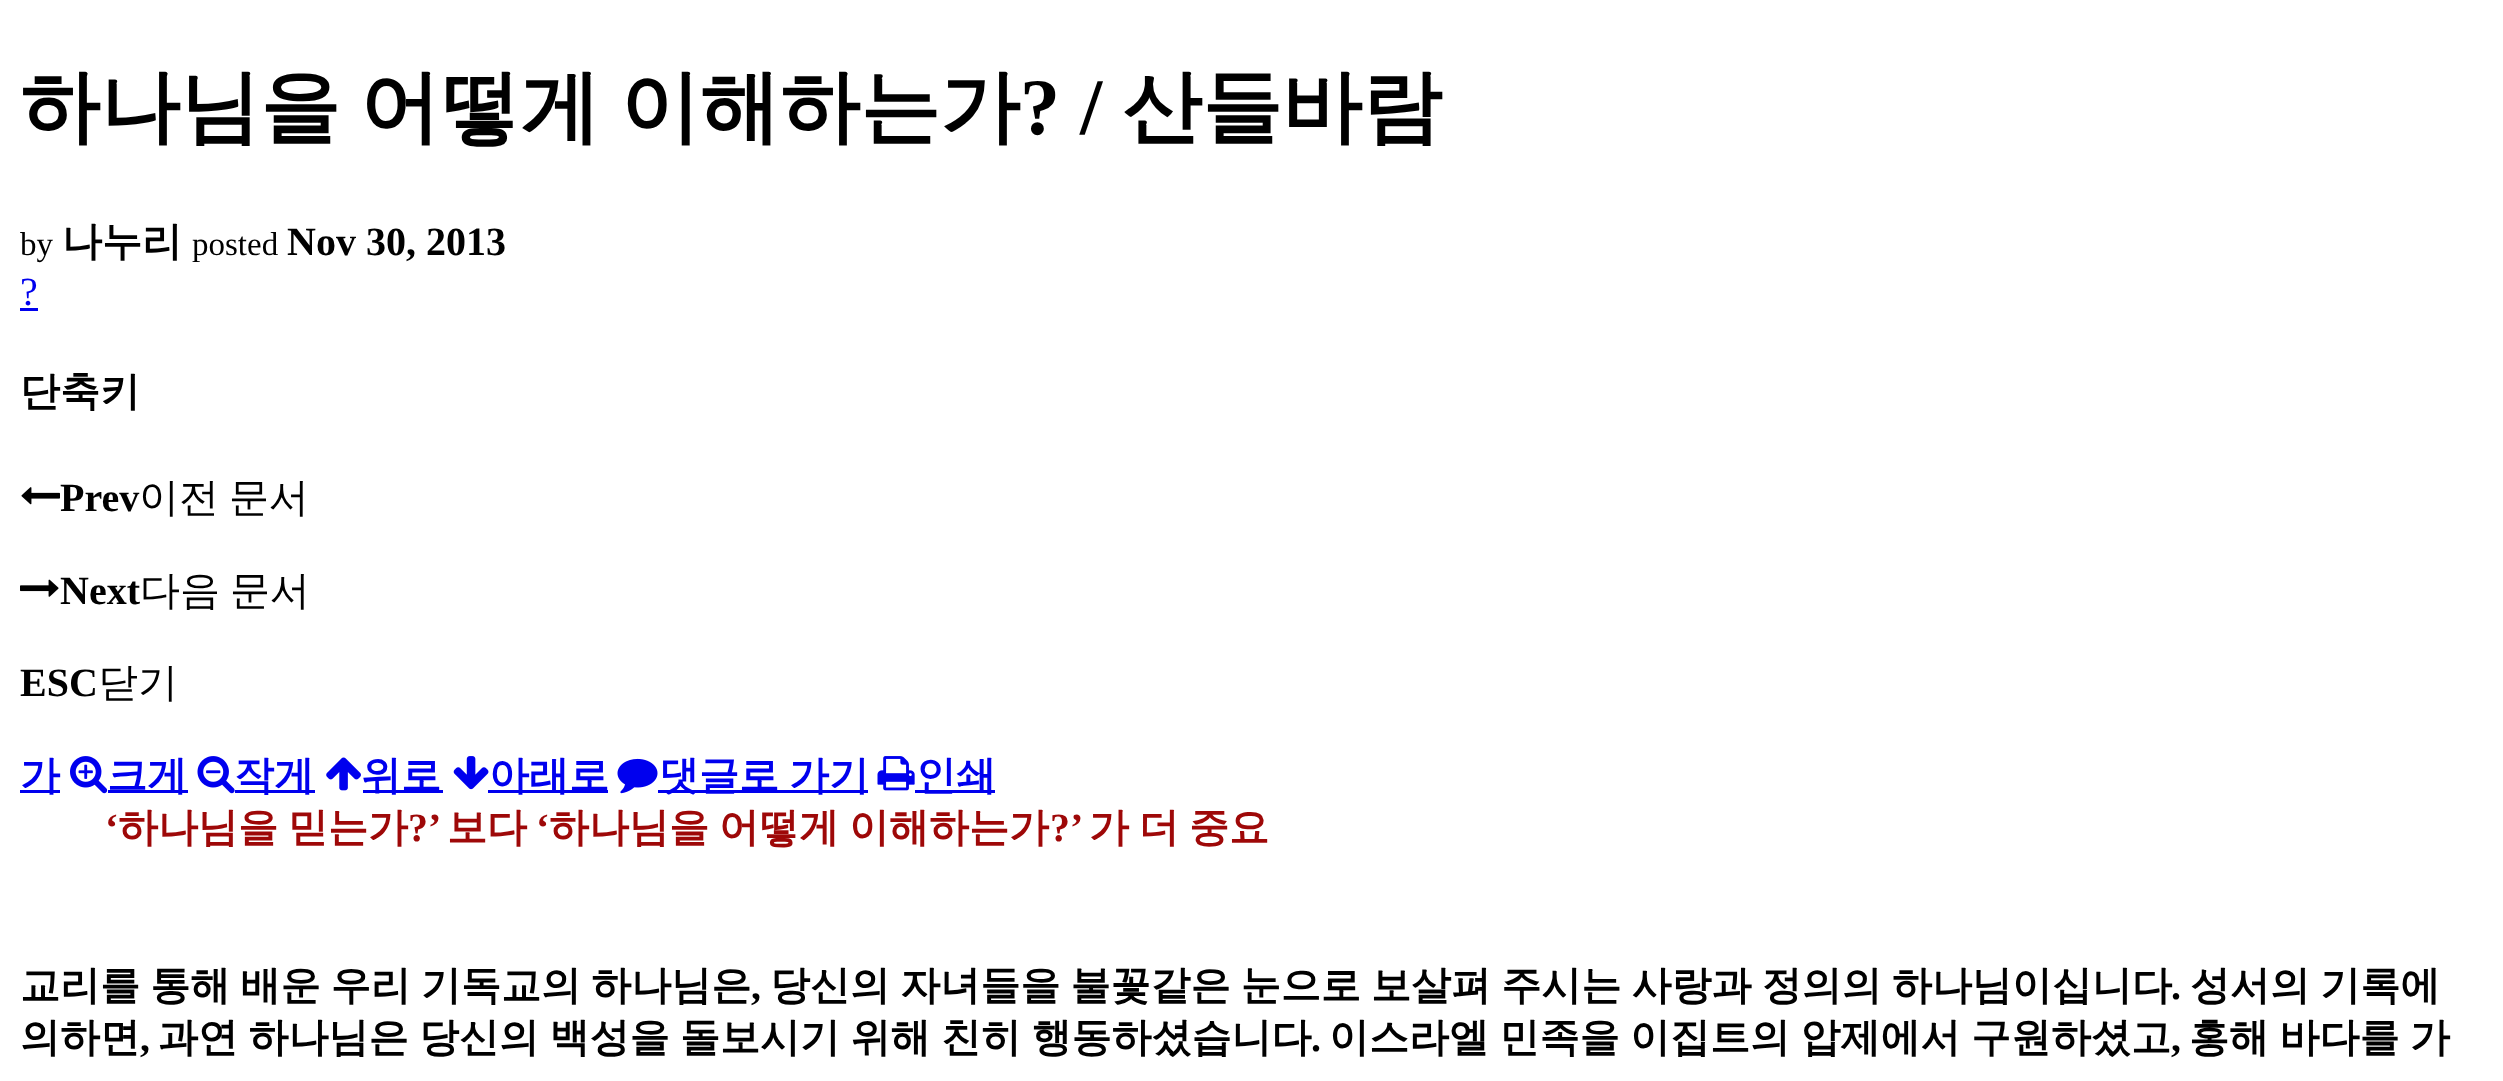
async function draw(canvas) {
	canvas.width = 2503;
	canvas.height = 1081;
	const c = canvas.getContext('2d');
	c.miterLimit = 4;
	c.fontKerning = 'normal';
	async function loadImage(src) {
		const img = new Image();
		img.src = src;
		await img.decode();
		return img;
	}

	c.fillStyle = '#fff';
	c.fillRect(0, 0, 2503, 1081);
	c.font = 'bold 80px WenQuanYi Zen Hei';
	c.fillStyle = '#000';
	for (const [text, x, y] of [
		['하나님을', 20, 134],
		['어떻게', 360, 134],
		['이해하는가', 620, 134],
	]) {
		c.fillText(text, x, y);
	}
	c.font = 'bold 80px Liberation Serif';
	c.fillText('? /', 1020, 134);
	c.font = 'bold 80px WenQuanYi Zen Hei';
	c.fillText('산들바람', 1122, 134);
	c.font = '33px Liberation Serif';
	c.fillText('by', 20, 255);
	c.font = 'bold 40px WenQuanYi Zen Hei';
	c.fillText('나누리', 62, 255);
	c.font = '33px Liberation Serif';
	c.fillText('posted', 192, 255);
	c.font = 'bold 40px Liberation Serif';
	c.fillText('Nov 30, 2013', 287, 255);
	c.font = '40px Liberation Serif';
	c.fillStyle = '#00e';
	c.fillText('?', 20, 305);
	c.fillRect(20, 308, 18, 3);
	c.font = 'bold 40px WenQuanYi Zen Hei';
	c.fillStyle = '#000';
	c.fillText('단축키', 20, 405);
	c.drawImage(await loadImage('img1.png'), 21, 487, 39, 18);
	c.font = 'bold 40px Liberation Serif';
	c.fillText('Prev', 60, 511);
	c.wordSpacing = '-2px';
	c.font = '500 40px WenQuanYi Zen Hei';
	c.fillText('이전 문서', 139, 511);
	c.drawImage(await loadImage('img2.png'), 20, 579, 39, 18);
	c.wordSpacing = '0px';
	c.font = 'bold 40px Liberation Serif';
	c.fillText('Next', 60, 604);
	c.wordSpacing = '-2px';
	c.font = '500 40px WenQuanYi Zen Hei';
	c.fillText('다음 문서', 140, 604);
	c.wordSpacing = '0px';
	c.font = 'bold 40px Liberation Serif';
	c.fillText('ESC', 20, 696);
	c.font = '500 40px WenQuanYi Zen Hei';
	c.fillText('닫기', 98, 696);
	c.fillStyle = '#00e';
	c.fillRect(20, 790, 40, 3);
	c.font = 'bold 40px WenQuanYi Zen Hei';
	c.fillText('가', 20, 789);
	c.drawImage(await loadImage('img3.png'), 70, 756, 38, 38);
	c.fillRect(108, 790, 80, 3);
	c.fillText('크게', 107, 789);
	c.drawImage(await loadImage('img4.png'), 197, 756, 38, 38);
	c.fillRect(235, 790, 80, 3);
	c.fillText('작게', 234, 789);
	c.drawImage(await loadImage('img5.png'), 326, 757, 35, 34);
	c.fillRect(363, 790, 80, 3);
	c.fillText('위로', 361, 789);
	c.drawImage(await loadImage('img6.png'), 453, 756, 36, 34);
	c.fillRect(488, 790, 120, 3);
	c.fillText('아래로', 489, 789);
	c.drawImage(await loadImage('img7.png'), 617, 758, 41, 36);
	c.fillRect(658, 790, 210, 3);
	c.wordSpacing = '-2px';
	c.fillText('댓글로 가기', 659, 789);
	c.drawImage(await loadImage('img8.png'), 877, 756, 38, 35);
	c.fillRect(915, 790, 80, 3);
	c.wordSpacing = '0px';
	c.fillText('인쇄', 916, 789);
	c.font = 'bold 40px Liberation Serif';
	c.fillStyle = '#9e0808';
	c.fillText('‘', 105, 841);
	c.wordSpacing = '-2px';
	c.font = 'bold 40px WenQuanYi Zen Hei';
	c.fillText('하나님을 믿는가', 118, 841);
	c.wordSpacing = '0px';
	c.font = 'bold 40px Liberation Serif';
	c.fillText('?’', 408, 841);
	c.font = 'bold 40px WenQuanYi Zen Hei';
	c.fillText('보다', 447, 841);
	c.font = 'bold 40px Liberation Serif';
	c.fillText('‘', 536, 841);
	c.wordSpacing = '-2px';
	c.font = 'bold 40px WenQuanYi Zen Hei';
	c.fillText('하나님을 어떻게 이해하는가', 549, 841);
	c.wordSpacing = '0px';
	c.font = 'bold 40px Liberation Serif';
	c.fillText('?’', 1050, 841);
	c.wordSpacing = '-2px';
	c.font = 'bold 40px WenQuanYi Zen Hei';
	c.fillText('가 더 중요', 1089, 841);
	c.wordSpacing = '-1.75px';
	c.fillStyle = '#000';
	c.fillText('교리를 통해 배운 우리 기독교의 하나님은', 20, 999);
	c.wordSpacing = '0px';
	c.font = 'bold 40px Liberation Serif';
	c.fillText(',', 751, 999);
	c.wordSpacing = '-1.75px';
	c.font = 'bold 40px WenQuanYi Zen Hei';
	c.fillText('당신의 자녀들을 불꽃같은 눈으로 보살펴 주시는 사랑과 정의의 하나님이십니다', 770, 999);
	c.wordSpacing = '0px';
	c.font = 'bold 40px Liberation Serif';
	c.fillText('.', 2171, 999);
	c.wordSpacing = '-1.75px';
	c.font = 'bold 40px WenQuanYi Zen Hei';
	c.fillText('성서의 기록에', 2190, 999);
	c.wordSpacing = '0px';
	c.fillText('의하면', 20, 1051);
	c.font = 'bold 40px Liberation Serif';
	c.fillText(',', 140, 1051);
	c.wordSpacing = '-1.5px';
	c.font = 'bold 40px WenQuanYi Zen Hei';
	c.fillText('과연 하나님은 당신의 백성을 돌보시기 위해 친히 행동하셨습니다', 158, 1051);
	c.wordSpacing = '0px';
	c.font = 'bold 40px Liberation Serif';
	c.fillText('.', 1311, 1051);
	c.wordSpacing = '-1.5px';
	c.font = 'bold 40px WenQuanYi Zen Hei';
	c.fillText('이스라엘 민족을 이집트의 압제에서 구원하셨고', 1329, 1051);
	c.wordSpacing = '0px';
	c.font = 'bold 40px Liberation Serif';
	c.fillText(',', 2171, 1051);
	c.wordSpacing = '-1.5px';
	c.font = 'bold 40px WenQuanYi Zen Hei';
	c.fillText('홍해 바다를 가', 2189, 1051);
}

draw(document.querySelector('canvas'));
